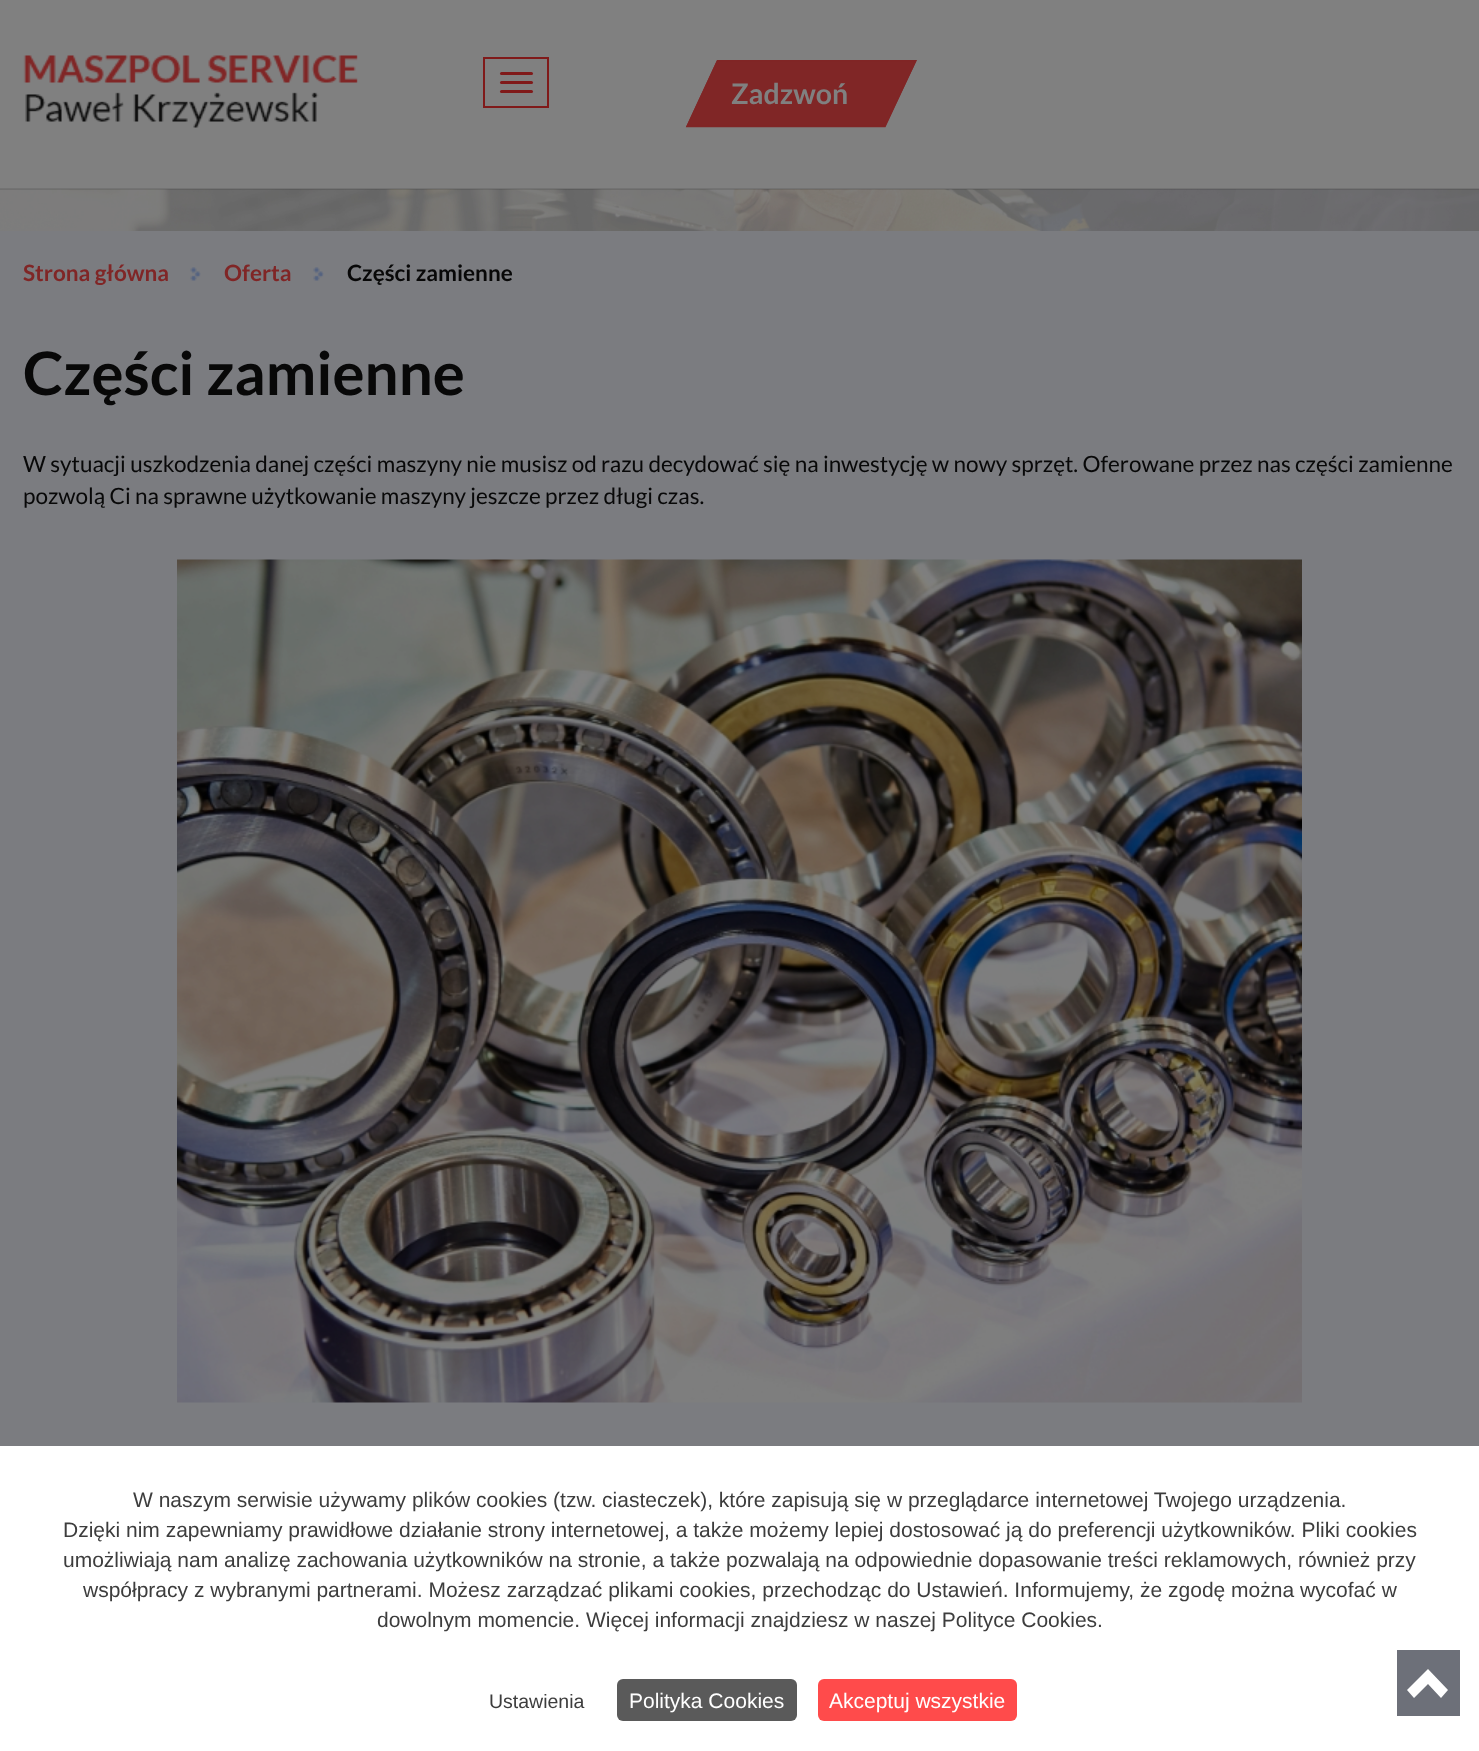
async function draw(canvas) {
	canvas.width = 1479;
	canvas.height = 1751;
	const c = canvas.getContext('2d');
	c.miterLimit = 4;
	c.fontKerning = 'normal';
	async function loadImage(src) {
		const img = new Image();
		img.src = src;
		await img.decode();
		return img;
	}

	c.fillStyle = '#7b7c80';
	c.fillRect(0, 0, 1479, 1751);
	c.fillStyle = '#808080';
	c.fillRect(0, 0, 1479, 189);
	c.drawImage(await loadImage('img2.png'), 0, 189, 1479, 42);
	c.fillStyle = '#0000001a';
	c.fillRect(0, 188, 1479, 2);
	c.drawImage(await loadImage('img1.png'), 23, 55, 335, 73);
	c.strokeStyle = '#801a1a';
	c.lineWidth = 2;
	c.strokeRect(484, 58, 64, 49);
	c.fillStyle = '#801a1a';
	c.beginPath();
	c.roundRect(500, 72, 33, 3, 1.5);
	c.fill();
	c.beginPath();
	c.roundRect(500, 81, 33, 3, 1.5);
	c.fill();
	c.beginPath();
	c.roundRect(500, 90, 33, 3, 1.5);
	c.fill();
	c.fillStyle = '#802626';
	c.beginPath();
	c.moveTo(717, 60);
	c.lineTo(917, 60);
	c.lineTo(885, 127);
	c.lineTo(686, 127);
	c.closePath();
	c.fill();
	c.beginPath();
	c.moveTo(717.5, 61);
	c.lineTo(915.5, 61);
	c.lineTo(885, 126.5);
	c.lineTo(687, 126.5);
	c.closePath();
	c.strokeStyle = '#802626';
	c.lineWidth = 1.5;
	c.stroke();
	c.font = 'bold 28.5px Lato';
	c.fillStyle = '#808080';
	c.fillText('Zadzwoń', 731, 104);
	c.font = 'bold 22.5px Lato';
	c.fillStyle = '#802626';
	c.fillText('Strona główna', 23, 281);
	c.drawImage(await loadImage('img3.png'), 190, 267, 11, 14);
	c.fillText('Oferta', 224, 281);
	c.drawImage(await loadImage('img3.png'), 313, 267, 11, 14);
	c.fillStyle = '#080808';
	c.fillText('Części zamienne', 347, 281);
	c.font = 'bold 60px Lato';
	c.fillText('Części zamienne', 23, 395);
	c.font = '22.5px Lato';
	c.fillText('W sytuacji uszkodzenia danej części maszyny nie musisz od razu decydować się na inwestycję w nowy sprzęt. Oferowane przez nas części zamienne', 23, 472);
	c.fillText('pozwolą Ci na sprawne użytkowanie maszyny jeszcze przez długi czas.', 23, 504);
	c.drawImage(await loadImage('img4.png'), 177, 559, 1125, 844);
	c.fillStyle = '#fff';
	c.fillRect(0, 1446, 1479, 305);
	c.fillStyle = '#6d7079';
	c.fillRect(1397, 1650, 63, 66);
	c.fillStyle = '#fff';
	c.beginPath();
	c.moveTo(1448, 1690);
	c.lineTo(1441, 1698);
	c.lineTo(1428, 1684);
	c.lineTo(1414, 1698);
	c.lineTo(1407, 1690);
	c.lineTo(1428, 1669);
	c.closePath();
	c.fill();
	c.font = '21px Liberation Sans';
	c.fillStyle = '#3d3d3d';
	for (const [text, x, y] of [
		['W naszym serwisie używamy plików cookies (tzw. ciasteczek), które zapisują się w przeglądarce internetowej Twojego urządzenia.', 133, 1507],
		['Dzięki nim zapewniamy prawidłowe działanie strony internetowej, a także możemy lepiej dostosować ją do preferencji użytkowników. Pliki cookies', 63, 1537],
		['umożliwiają nam analizę zachowania użytkowników na stronie, a także pozwalają na odpowiednie dopasowanie treści reklamowych, również przy', 63, 1567],
		['współpracy z wybranymi partnerami. Możesz zarządzać plikami cookies, przechodząc do Ustawień. Informujemy, że zgodę można wycofać w', 83, 1597],
		['dowolnym momencie. Więcej informacji znajdziesz w naszej Polityce Cookies.', 377, 1627],
	]) {
		c.fillText(text, x, y);
	}
	c.font = '19.5px Liberation Sans';
	c.fillText('Ustawienia', 489, 1708);
	c.fillStyle = '#5a5a5a';
	c.beginPath();
	c.roundRect(617, 1679, 180, 42, 6);
	c.fill();
	c.font = '21px Liberation Sans';
	c.fillStyle = '#fff';
	c.fillText('Polityka Cookies', 629, 1708);
	c.fillStyle = '#ff4b4b';
	c.beginPath();
	c.roundRect(818, 1679, 199, 42, 6);
	c.fill();
	c.fillStyle = '#fff';
	c.fillText('Akceptuj wszystkie', 829, 1708);
}

draw(document.querySelector('canvas'));
